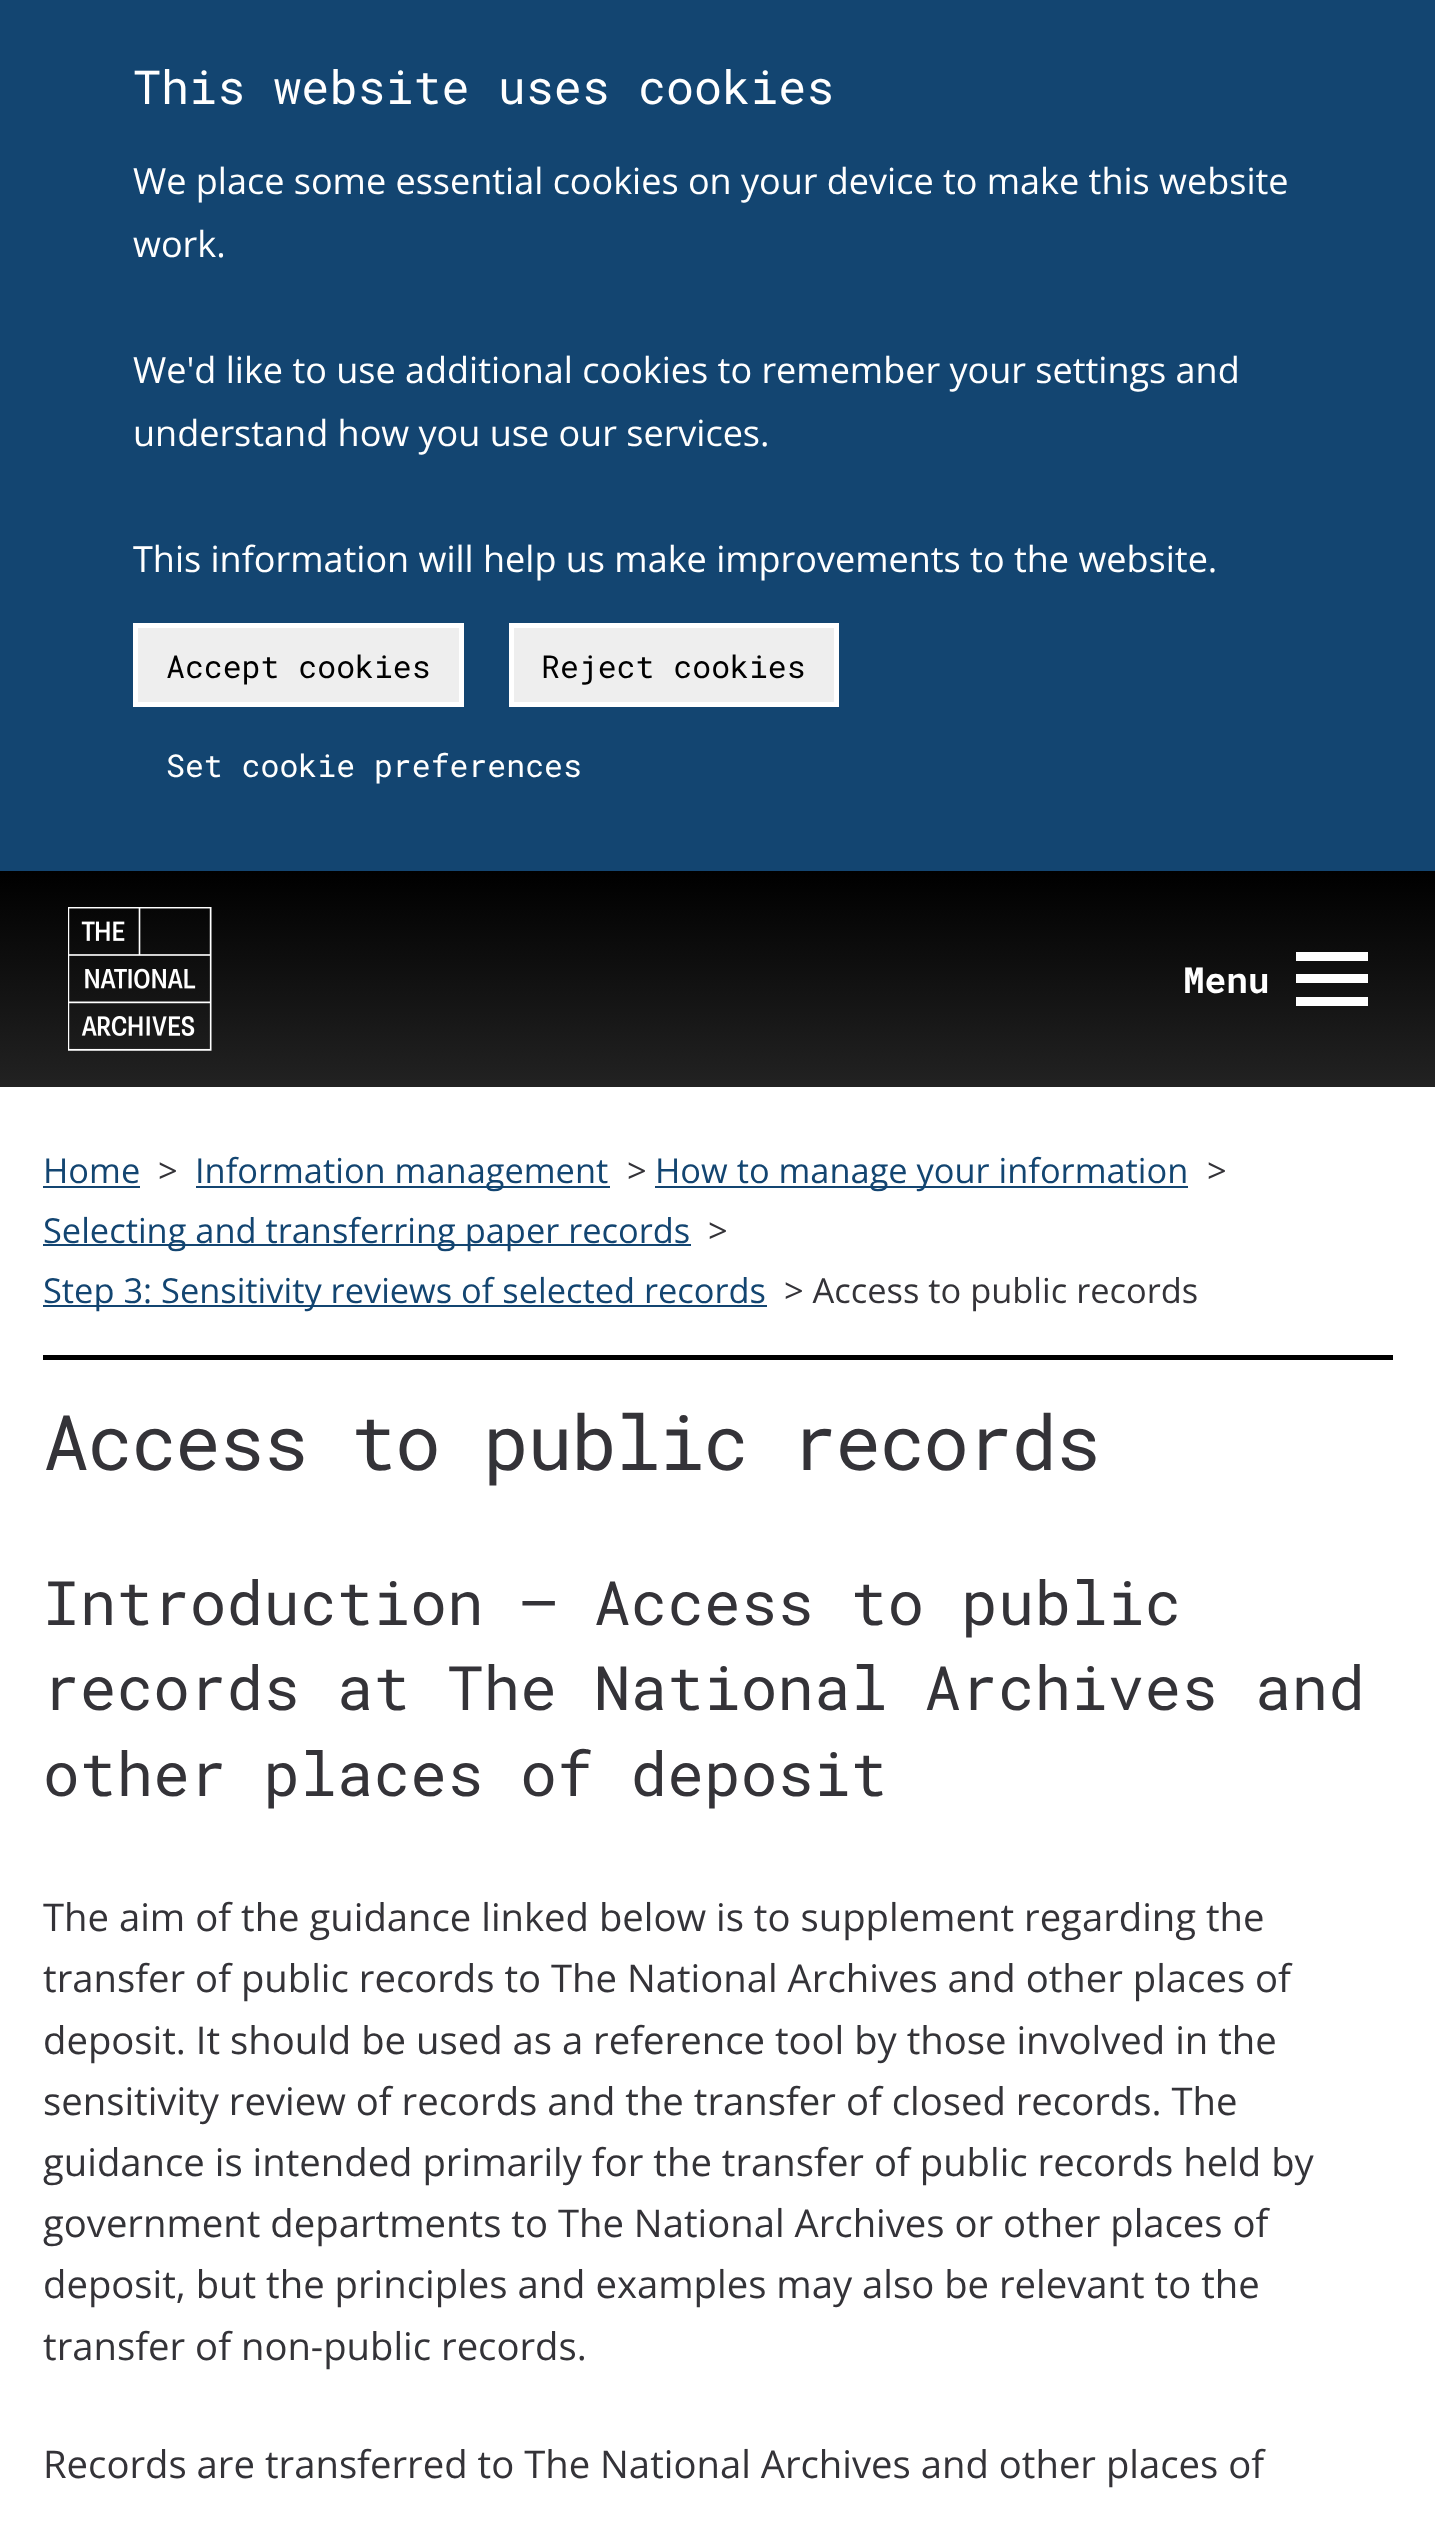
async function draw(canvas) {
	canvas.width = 1435;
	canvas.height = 2527;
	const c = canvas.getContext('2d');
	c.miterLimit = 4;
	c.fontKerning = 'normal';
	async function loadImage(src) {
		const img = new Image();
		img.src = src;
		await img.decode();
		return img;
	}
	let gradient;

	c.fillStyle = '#fff';
	c.fillRect(0, 0, 1435, 2527);
	c.fillStyle = '#134571';
	c.fillRect(0, 0, 1435, 871);
	c.font = '46.75px Roboto Mono';
	c.fillStyle = '#fff';
	c.fillText('This website uses cookies', 133, 104);
	c.font = '36px Open Sans';
	for (const [text, x, y] of [
		['We place some essential cookies on your device to make this website', 133, 194],
		['work.', 133, 257],
		['We\'d like to use additional cookies to remember your settings and', 133, 383],
		['understand how you use our services.', 133, 446],
		['This information will help us make improvements to the website.', 133, 572],
	]) {
		c.fillText(text, x, y);
	}
	c.fillStyle = '#eee';
	c.beginPath();
	c.rect(135.5, 625.5, 326, 79);
	c.fill();
	c.strokeStyle = '#fff';
	c.lineWidth = 5;
	c.stroke();
	c.font = '31.5px Roboto Mono';
	c.fillStyle = '#000';
	c.fillText('Accept cookies', 166, 678);
	c.fillStyle = '#eee';
	c.beginPath();
	c.rect(511.5, 625.5, 325, 79);
	c.fill();
	c.stroke();
	c.fillStyle = '#000';
	c.fillText('Reject cookies', 541, 678);
	c.fillStyle = '#fff';
	c.fillText('Set cookie preferences', 166, 777);
	gradient = c.createLinearGradient(718, 1087, 718, 871);
	gradient.addColorStop(0, '#222');
	gradient.addColorStop(1, '#000');
	c.fillStyle = gradient;
	c.fillRect(0, 871, 1435, 216);
	c.drawImage(await loadImage('img1.png'), 68, 907, 144, 144);
	c.font = 'bold 36px Roboto Mono';
	c.fillStyle = '#fff';
	c.fillText('Menu', 1183, 993);
	for (const [x, y, w, h, color] of [
		[1296, 974, 72, 9, '#fff'],
		[1296, 952, 72, 9, '#fff'],
		[1296, 997, 72, 9, '#fff'],
		[196, 1186, 414, 2, '#134571'],
	]) {
		c.fillStyle = color;
		c.fillRect(x, y, w, h);
	}
	c.font = '34.4px Open Sans';
	c.fillText('Information management', 195, 1183);
	c.fillStyle = '#343338';
	c.fillText('>', 627, 1183);
	c.fillStyle = '#134571';
	c.fillRect(655, 1186, 533, 2);
	c.fillText('How to manage your information', 655, 1183);
	c.fillStyle = '#343338';
	c.fillText('>', 1207, 1183);
	c.fillStyle = '#134571';
	c.fillRect(43, 1244, 648, 2);
	c.fillText('Selecting and transferring paper records', 43, 1243);
	c.fillStyle = '#343338';
	c.fillText('>', 708, 1243);
	c.fillStyle = '#134571';
	c.fillRect(43, 1305, 724, 2);
	c.fillText('Step 3: Sensitivity reviews of selected records', 43, 1303);
	c.fillStyle = '#343338';
	c.fillText('> Access to public records', 784, 1303);
	c.fillStyle = '#134571';
	c.fillText('Home', 43, 1183);
	c.fillRect(43, 1186, 97, 2);
	c.fillStyle = '#343338';
	c.fillText('>', 158, 1183);
	c.fillStyle = '#000';
	c.fillRect(43, 1355, 1350, 5);
	c.letterSpacing = '-1.9px';
	c.font = '76.5px Roboto Mono';
	c.fillStyle = '#343338';
	c.fillText('Access to public records', 43, 1470);
	c.letterSpacing = '0px';
	c.font = '61.2px Roboto Mono';
	for (const [text, x, y] of [
		['Introduction – Access to public', 43, 1625],
		['records at The National Archives and', 43, 1710],
		['other places of deposit', 43, 1796],
	]) {
		c.fillText(text, x, y);
	}
	c.font = '38.25px Open Sans';
	for (const [text, x, y] of [
		['The aim of the guidance linked below is to supplement regarding the', 43, 1931],
		['transfer of public records to The National Archives and other places of', 43, 1992],
		['deposit. It should be used as a reference tool by those involved in the', 43, 2054],
		['sensitivity review of records and the transfer of closed records. The', 43, 2115],
		['guidance is intended primarily for the transfer of public records held by', 43, 2176],
		['government departments to The National Archives or other places of', 43, 2237],
		['deposit, but the principles and examples may also be relevant to the', 43, 2298],
		['transfer of non-public records.', 43, 2360],
		['Records are transferred to The National Archives and other places of', 43, 2478],
	]) {
		c.fillText(text, x, y);
	}
}

draw(document.querySelector('canvas'));
